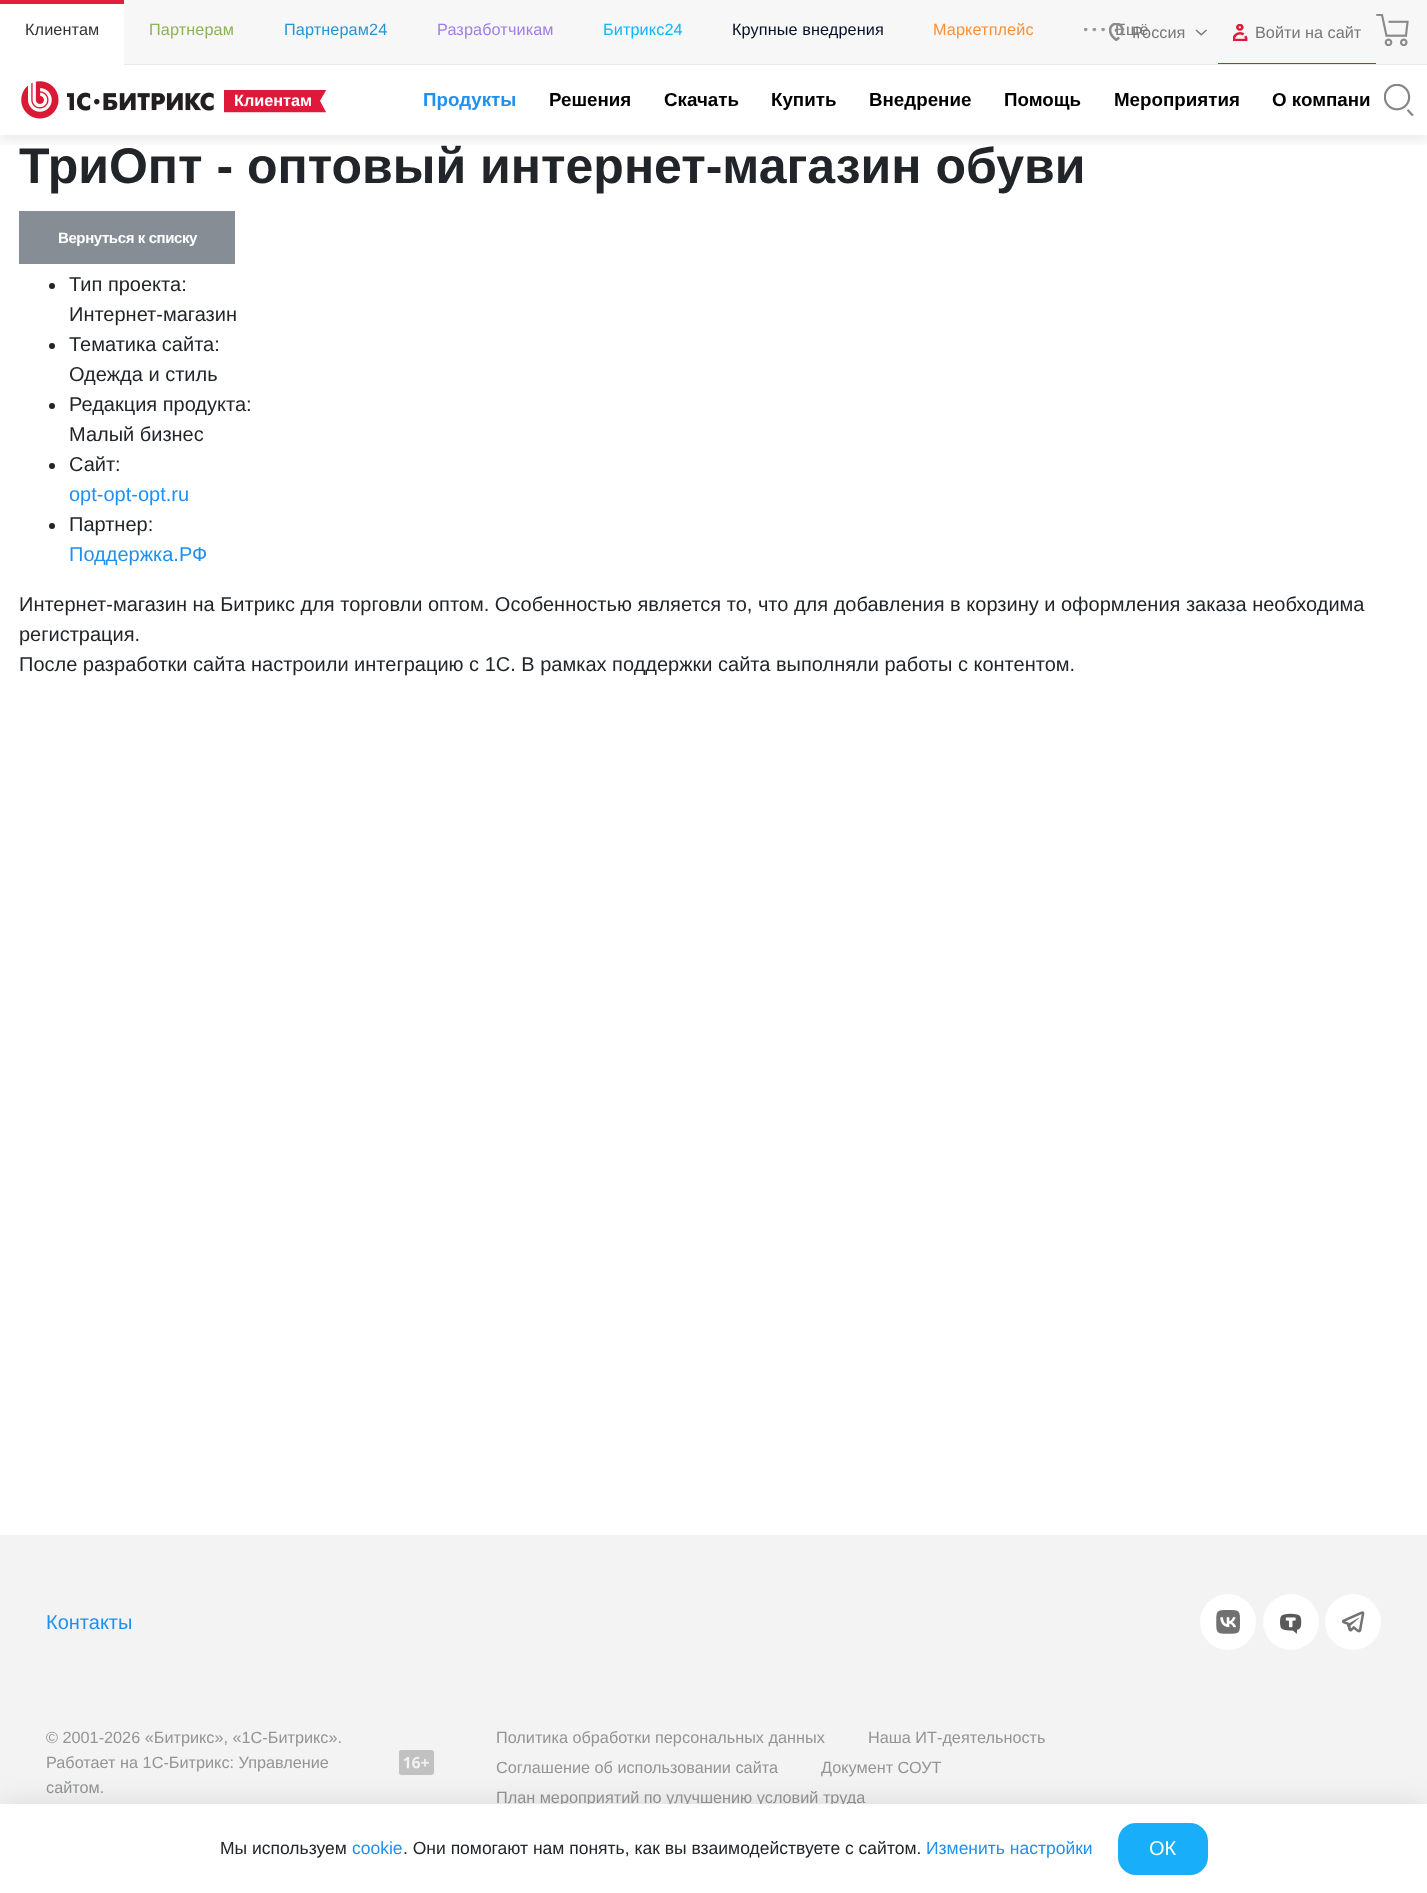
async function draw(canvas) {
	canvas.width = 1427;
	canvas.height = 1893;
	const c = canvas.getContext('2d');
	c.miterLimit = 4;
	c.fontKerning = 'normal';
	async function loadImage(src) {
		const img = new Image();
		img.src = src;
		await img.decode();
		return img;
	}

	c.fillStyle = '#fff';
	c.fillRect(0, 0, 1427, 1893);
	for (const [x, y, w, h, color] of [
		[124, 0, 1303, 64, '#f7f7f7'],
		[124, 64, 1303, 1, '#e9e9e9'],
		[0, 0, 124, 4, '#e41c3d'],
	]) {
		c.fillStyle = color;
		c.fillRect(x, y, w, h);
	}
	c.letterSpacing = '0.1px';
	c.font = '16.25px Liberation Sans';
	c.fillStyle = '#333';
	c.fillText('Клиентам', 25, 35);
	c.fillStyle = '#8db356';
	c.fillText('Партнерам', 149, 35);
	c.fillStyle = '#2595d5';
	c.fillText('Партнерам24', 284, 35);
	c.fillStyle = '#9f7ee6';
	c.fillText('Разработчикам', 437, 35);
	c.fillStyle = '#0bb7ff';
	c.fillText('Битрикс24', 603, 35);
	c.fillStyle = '#020f25';
	c.fillText('Крупные внедрения', 732, 35);
	c.fillStyle = '#ff9037';
	c.fillText('Маркетплейс', 933, 35);
	c.drawImage(await loadImage('img1.png'), 1084, 28, 21, 4);
	c.fillStyle = '#777';
	c.fillText('Ещё', 1115, 35);
	c.drawImage(await loadImage('img2.png'), 1109, 23, 15, 18);
	c.letterSpacing = '0px';
	c.fillText('Россия', 1132, 38);
	c.beginPath();
	c.moveTo(1196.5, 29.5);
	c.lineTo(1202, 34.5);
	c.lineTo(1201, 35.5);
	c.lineTo(1195.5, 30.5);
	c.closePath();
	c.fill();
	c.beginPath();
	c.moveTo(1200.5, 34.5);
	c.lineTo(1206, 29.5);
	c.lineTo(1207, 30.5);
	c.lineTo(1201.5, 35.5);
	c.closePath();
	c.fill();
	c.fillStyle = '#e01839';
	c.fillRect(1218, 63, 158, 1);
	c.drawImage(await loadImage('img3.png'), 1233, 24, 15, 17);
	c.fillStyle = '#777';
	c.fillText('Войти на сайт', 1255, 38);
	c.drawImage(await loadImage('img4.png'), 1376, 14, 33, 32);
	c.save();
	c.beginPath();
	c.rect(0, 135, 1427, 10);
	c.clip();
	c.fillStyle = '#00000014';
	c.filter = 'blur(6px)';
	c.beginPath();
	c.rect(0, 71, 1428, 70);
	c.fill();
	c.filter = 'none';
	c.restore();
	c.drawImage(await loadImage('img5.png'), 21, 81, 193, 38);
	c.drawImage(await loadImage('img6.png'), 224, 90, 102, 23);
	c.font = 'bold 16.25px Liberation Sans';
	c.fillStyle = '#fff';
	c.fillText('Клиентам', 234, 106);
	c.font = 'bold 18.75px Liberation Sans';
	c.fillStyle = '#1f90ef';
	c.fillText('Продукты', 423, 106);
	c.fillStyle = '#000';
	for (const [text, x, y] of [
		['Решения', 549, 106],
		['Скачать', 664, 106],
		['Купить', 771, 106],
		['Внедрение', 869, 106],
		['Помощь', 1004, 106],
		['Мероприятия', 1114, 106],
		['О компани', 1272, 106],
	]) {
		c.fillText(text, x, y);
	}
	c.drawImage(await loadImage('img7.png'), 1384, 84, 30, 32);
	c.font = 'bold 50px Liberation Sans';
	c.fillStyle = '#212529';
	c.fillText('ТриОпт - оптовый интернет-магазин обуви', 19, 183);
	c.fillStyle = '#868d95';
	c.fillRect(19, 211, 216, 53);
	c.letterSpacing = '-0.4px';
	c.font = 'bold 15px Liberation Sans';
	c.fillStyle = '#fff';
	c.fillText('Вернуться к списку', 58, 243);
	c.fillStyle = '#212529';
	c.beginPath();
	c.arc(52, 286, 3, 0, 2 * Math.PI);
	c.fill();
	c.letterSpacing = '0px';
	c.font = '20px Liberation Sans';
	c.fillText('Тип проекта:', 69, 291);
	c.fillText('Интернет-магазин', 69, 321);
	c.beginPath();
	c.arc(52, 346, 3, 0, 2 * Math.PI);
	c.fill();
	c.fillText('Тематика сайта:', 69, 351);
	c.fillText('Одежда и стиль', 69, 381);
	c.beginPath();
	c.arc(52, 406, 3, 0, 2 * Math.PI);
	c.fill();
	c.fillText('Редакция продукта:', 69, 411);
	c.fillText('Малый бизнес', 69, 441);
	c.beginPath();
	c.arc(52, 466, 3, 0, 2 * Math.PI);
	c.fill();
	c.fillText('Сайт:', 69, 471);
	c.fillStyle = '#1f90ef';
	c.fillText('opt-opt-opt.ru', 69, 501);
	c.fillStyle = '#212529';
	c.beginPath();
	c.arc(52, 526, 3, 0, 2 * Math.PI);
	c.fill();
	c.fillText('Партнер:', 69, 531);
	c.fillStyle = '#1f90ef';
	c.fillText('Поддержка.РФ', 69, 561);
	c.fillStyle = '#212529';
	for (const [text, x, y] of [
		['Интернет-магазин на Битрикс для торговли оптом. Особенностью является то, что для добавления в корзину и оформления заказа необходима', 19, 611],
		['регистрация.', 19, 641],
		['После разработки сайта настроили интеграцию с 1С. В рамках поддержки сайта выполняли работы с контентом.', 19, 671],
	]) {
		c.fillText(text, x, y);
	}
	c.fillStyle = '#f3f3f3';
	c.fillRect(0, 1535, 1427, 269);
	c.fillStyle = '#1f90ef';
	c.fillText('Контакты', 46, 1629);
	c.fillStyle = '#fff';
	c.beginPath();
	c.arc(1228, 1622, 28, 0, 2 * Math.PI);
	c.fill();
	c.drawImage(await loadImage('img8.png'), 1216, 1610, 24, 24);
	c.beginPath();
	c.arc(1291, 1622, 28, 0, 2 * Math.PI);
	c.fill();
	c.drawImage(await loadImage('img9.png'), 1280, 1613, 22, 21);
	c.beginPath();
	c.arc(1353, 1622, 28, 0, 2 * Math.PI);
	c.fill();
	c.drawImage(await loadImage('img10.png'), 1341, 1611, 24, 22);
	c.font = '16.25px Liberation Sans';
	c.fillStyle = '#939495';
	for (const [text, x, y] of [
		['© 2001-2026 «Битрикс», «1С-Битрикс».', 46, 1743],
		['Работает на 1С-Битрикс: Управление', 46, 1768],
		['сайтом.', 46, 1793],
	]) {
		c.fillText(text, x, y);
	}
	c.drawImage(await loadImage('img11.png'), 399, 1750, 36, 25);
	for (const [text, x, y] of [
		['Политика обработки персональных данных', 496, 1743],
		['Наша ИТ-деятельность', 868, 1743],
		['Соглашение об использовании сайта', 496, 1773],
		['Документ СОУТ', 821, 1773],
		['План мероприятий по улучшению условий труда', 496, 1803],
	]) {
		c.fillText(text, x, y);
	}
	c.fillStyle = '#0000001a';
	c.filter = 'blur(15px)';
	c.beginPath();
	c.rect(0, 1804, 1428, 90);
	c.fill();
	c.filter = 'none';
	c.fillStyle = '#fff';
	c.fillRect(0, 1804, 1427, 89);
	c.font = '17.5px Liberation Sans';
	c.fillStyle = '#212529';
	c.fillText('Мы используем', 220, 1854);
	c.fillStyle = '#1f90ef';
	c.fillText('cookie', 352, 1854);
	c.fillStyle = '#212529';
	c.fillText('. Они помогают нам понять, как вы взаимодействуете с сайтом.', 403, 1854);
	c.fillStyle = '#1f90ef';
	c.fillText('Изменить настройки', 926, 1854);
	c.fillStyle = '#19aef9';
	c.beginPath();
	c.roundRect(1118, 1823, 90, 52, 18);
	c.fill();
	c.font = '20px Liberation Sans';
	c.fillStyle = '#fff';
	c.fillText('ОК', 1149, 1855);
}

draw(document.querySelector('canvas'));
